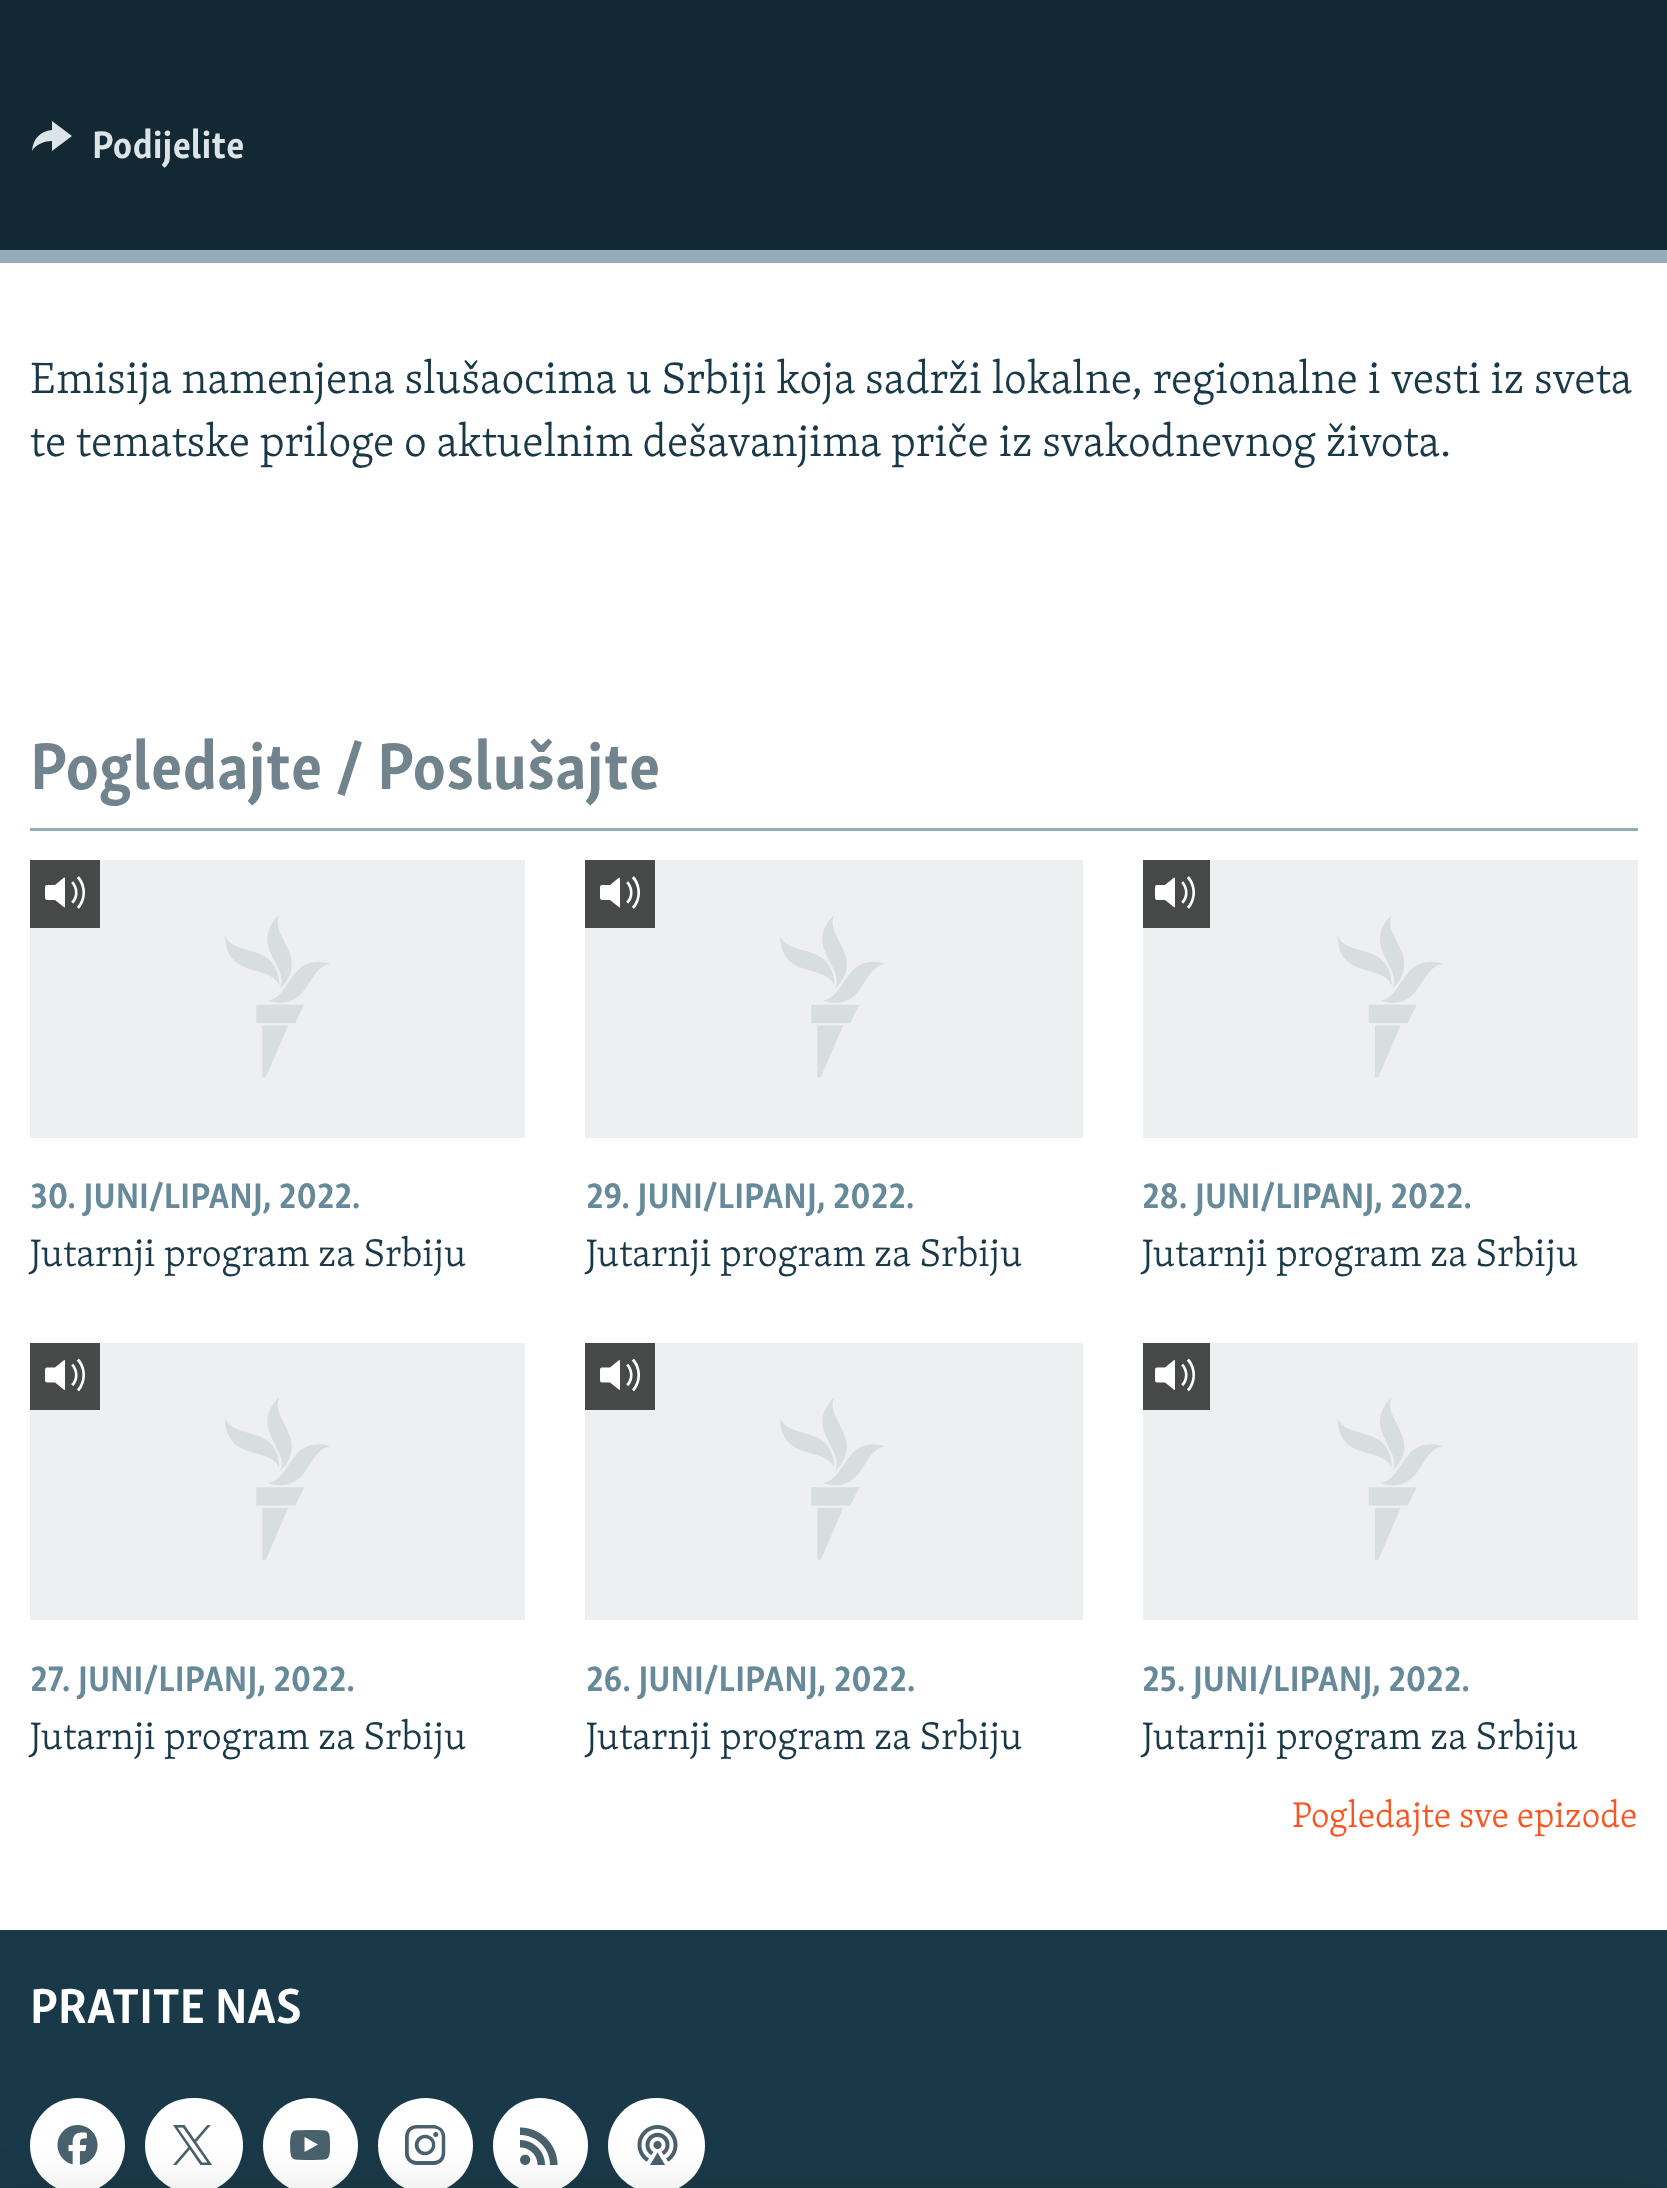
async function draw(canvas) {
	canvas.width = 1667;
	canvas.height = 2188;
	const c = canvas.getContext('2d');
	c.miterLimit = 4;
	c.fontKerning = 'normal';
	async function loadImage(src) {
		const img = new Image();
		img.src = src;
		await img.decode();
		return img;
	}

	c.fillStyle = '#fff';
	c.fillRect(0, 0, 1667, 2188);
	c.fillStyle = '#122832';
	c.fillRect(0, 0, 1667, 250);
	c.fillStyle = '#95adb9';
	c.fillRect(0, 250, 1667, 13);
	c.fillStyle = '#dce4e8';
	c.beginPath();
	c.moveTo(32, 151);
	c.bezierCurveTo(33, 139, 40, 131, 52, 130);
	c.lineTo(52, 121);
	c.lineTo(72, 136);
	c.lineTo(52, 151);
	c.lineTo(52, 141);
	c.bezierCurveTo(45, 141, 36, 144, 32, 151);
	c.closePath();
	c.fill();
	c.font = 'bold 39.4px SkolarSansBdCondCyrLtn';
	c.fillText('Podijelite', 92, 158);
	c.font = '300 45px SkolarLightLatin';
	c.fillStyle = '#1a3948';
	c.fillText('Emisija namenjena slušaocima u Srbiji koja sadrži lokalne, regionalne i vesti iz sveta', 30, 393);
	c.fillText('te tematske priloge o aktuelnim dešavanjima priče iz svakodnevnog života.', 30, 456);
	c.fillStyle = '#95adb9';
	c.fillRect(30, 828, 1608, 3);
	c.font = 'bold 67.5px SkolarSansBdCondCyrLtn';
	c.fillStyle = '#71838d';
	c.fillText('Pogledajte / Poslušajte', 30, 789);
	c.fillStyle = '#edeff0';
	c.fillRect(30, 860, 495, 278);
	c.drawImage(await loadImage('img1.png'), 225, 915, 105, 163);
	c.fillStyle = '#474848';
	c.fillRect(30, 860, 70, 68);
	c.drawImage(await loadImage('img2.png'), 45, 876, 40, 33);
	c.font = 'bold 36.5px SkolarSansBdCondCyrLtn';
	c.fillStyle = '#678a9b';
	c.fillText('30. JUNI/LIPANJ, 2022.', 30, 1208);
	c.font = '300 39.4px SkolarLightLatin';
	c.fillStyle = '#1a3948';
	c.fillText('Jutarnji program za Srbiju', 30, 1266);
	c.fillStyle = '#edeff0';
	c.fillRect(585, 860, 498, 278);
	c.drawImage(await loadImage('img1.png'), 780, 915, 105, 163);
	c.fillStyle = '#474848';
	c.fillRect(585, 860, 70, 68);
	c.drawImage(await loadImage('img2.png'), 600, 876, 40, 33);
	c.font = 'bold 36.5px SkolarSansBdCondCyrLtn';
	c.fillStyle = '#678a9b';
	c.fillText('29. JUNI/LIPANJ, 2022.', 586, 1208);
	c.font = '300 39.4px SkolarLightLatin';
	c.fillStyle = '#1a3948';
	c.fillText('Jutarnji program za Srbiju', 586, 1266);
	c.fillStyle = '#edeff0';
	c.fillRect(1143, 860, 495, 278);
	c.drawImage(await loadImage('img3.png'), 1337, 915, 106, 163);
	c.fillStyle = '#474848';
	c.fillRect(1143, 860, 67, 68);
	c.drawImage(await loadImage('img2.png'), 1155, 876, 40, 33);
	c.font = 'bold 36.5px SkolarSansBdCondCyrLtn';
	c.fillStyle = '#678a9b';
	c.fillText('28. JUNI/LIPANJ, 2022.', 1142, 1208);
	c.font = '300 39.4px SkolarLightLatin';
	c.fillStyle = '#1a3948';
	c.fillText('Jutarnji program za Srbiju', 1142, 1266);
	c.fillStyle = '#edeff0';
	c.fillRect(30, 1343, 495, 277);
	c.drawImage(await loadImage('img4.png'), 225, 1398, 105, 162);
	c.fillStyle = '#474848';
	c.fillRect(30, 1343, 70, 67);
	c.drawImage(await loadImage('img5.png'), 45, 1358, 40, 34);
	c.font = 'bold 36.5px SkolarSansBdCondCyrLtn';
	c.fillStyle = '#678a9b';
	c.fillText('27. JUNI/LIPANJ, 2022.', 30, 1691);
	c.font = '300 39.4px SkolarLightLatin';
	c.fillStyle = '#1a3948';
	c.fillText('Jutarnji program za Srbiju', 30, 1749);
	c.fillStyle = '#edeff0';
	c.fillRect(585, 1343, 498, 277);
	c.drawImage(await loadImage('img4.png'), 780, 1398, 105, 162);
	c.fillStyle = '#474848';
	c.fillRect(585, 1343, 70, 67);
	c.drawImage(await loadImage('img5.png'), 600, 1358, 40, 34);
	c.font = 'bold 36.5px SkolarSansBdCondCyrLtn';
	c.fillStyle = '#678a9b';
	c.fillText('26. JUNI/LIPANJ, 2022.', 586, 1691);
	c.font = '300 39.4px SkolarLightLatin';
	c.fillStyle = '#1a3948';
	c.fillText('Jutarnji program za Srbiju', 586, 1749);
	c.fillStyle = '#edeff0';
	c.fillRect(1143, 1343, 495, 277);
	c.drawImage(await loadImage('img6.png'), 1337, 1398, 106, 162);
	c.fillStyle = '#474848';
	c.fillRect(1143, 1343, 67, 67);
	c.drawImage(await loadImage('img5.png'), 1155, 1358, 40, 34);
	c.font = 'bold 36.5px SkolarSansBdCondCyrLtn';
	c.fillStyle = '#678a9b';
	c.fillText('25. JUNI/LIPANJ, 2022.', 1142, 1691);
	c.font = '300 39.4px SkolarLightLatin';
	c.fillStyle = '#1a3948';
	c.fillText('Jutarnji program za Srbiju', 1142, 1749);
	c.font = '300 36.5px SkolarLightLatin';
	c.fillStyle = '#fa5420';
	c.fillText('Pogledajte sve epizode', 1292, 1827);
	c.fillStyle = '#1a3948';
	c.fillRect(0, 1930, 1667, 258);
	c.font = 'bold 50.5px SkolarSansBdCondCyrLtn';
	c.fillStyle = '#fff';
	c.fillText('PRATITE NAS', 30, 2023);
	c.beginPath();
	c.arc(77.5, 2145.5, 47.5, 0, 2 * Math.PI);
	c.fill();
	c.drawImage(await loadImage('img7.png'), 57, 2125, 41, 40);
	c.beginPath();
	c.roundRect(145, 2098, 98, 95, 47.5);
	c.fill();
	c.drawImage(await loadImage('img8.png'), 173, 2125, 39, 40);
	c.beginPath();
	c.arc(310.5, 2145.5, 47.5, 0, 2 * Math.PI);
	c.fill();
	c.drawImage(await loadImage('img9.png'), 290, 2130, 40, 31);
	c.beginPath();
	c.arc(425.5, 2145.5, 47.5, 0, 2 * Math.PI);
	c.fill();
	c.drawImage(await loadImage('img10.png'), 405, 2125, 41, 40);
	c.beginPath();
	c.arc(540.5, 2145.5, 47.5, 0, 2 * Math.PI);
	c.fill();
	c.drawImage(await loadImage('img11.png'), 520, 2127, 38, 38);
	c.beginPath();
	c.roundRect(608, 2098, 97, 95, 47.5);
	c.fill();
	c.drawImage(await loadImage('img12.png'), 637, 2125, 41, 40);
	c.fillStyle = '#0000001a';
	c.filter = 'blur(25px)';
	c.beginPath();
	c.rect(0, 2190, 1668, 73);
	c.fill();
	c.filter = 'none';
}

draw(document.querySelector('canvas'));
